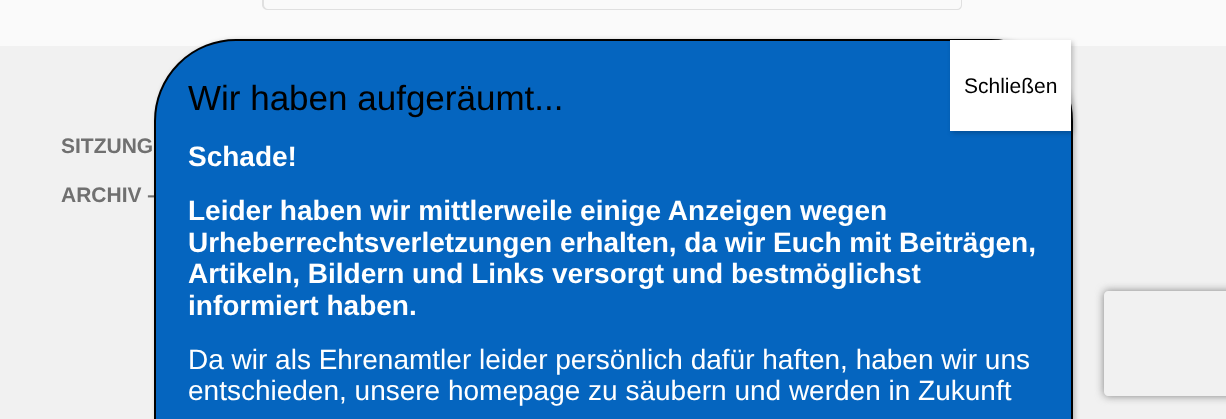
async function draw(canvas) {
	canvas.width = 1226;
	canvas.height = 419;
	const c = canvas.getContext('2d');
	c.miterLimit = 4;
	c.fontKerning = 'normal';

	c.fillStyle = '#fafafa';
	c.fillRect(0, 0, 1226, 419);
	c.fillStyle = '#e0e0e0';
	c.beginPath();
	c.moveTo(268, -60);
	c.lineTo(892, -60);
	c.lineTo(892, 10);
	c.lineTo(268, 10);
	c.bezierCurveTo(265, 10, 262, 8, 262, 5);
	c.lineTo(262, -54);
	c.bezierCurveTo(262, -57, 265, -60, 268, -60);
	c.closePath();
	c.moveTo(268, -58);
	c.lineTo(892, -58);
	c.lineTo(892, 9);
	c.lineTo(268, 9);
	c.bezierCurveTo(266, 9, 264, 7, 264, 5);
	c.lineTo(264, -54);
	c.bezierCurveTo(264, -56, 266, -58, 268, -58);
	c.closePath();
	c.fill('evenodd');
	c.beginPath();
	c.moveTo(892, -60);
	c.lineTo(957, -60);
	c.bezierCurveTo(960, -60, 962, -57, 962, -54);
	c.lineTo(962, 5);
	c.bezierCurveTo(962, 8, 960, 10, 957, 10);
	c.lineTo(892, 10);
	c.closePath();
	c.moveTo(892, -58);
	c.lineTo(957, -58);
	c.bezierCurveTo(959, -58, 961, -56, 961, -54);
	c.lineTo(961, 5);
	c.bezierCurveTo(961, 7, 959, 9, 957, 9);
	c.lineTo(892, 9);
	c.closePath();
	c.fill('evenodd');
	c.fillStyle = '#f1f1f1';
	c.fillRect(0, 46, 1226, 373);
	c.font = 'bold 21px Liberation Sans';
	c.fillStyle = '#707070';
	c.fillText('SITZUNG', 61, 153);
	c.fillText('ARCHIV –', 61, 202);
	c.fillStyle = '#0202023b';
	c.filter = 'blur(2.5px)';
	c.beginPath();
	c.roundRect(156, 40, 919, 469, 82);
	c.fill();
	c.filter = 'none';
	c.fillStyle = '#0565bf';
	c.beginPath();
	c.roundRect(155, 40, 917, 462, 81);
	c.fill();
	c.strokeStyle = '#000';
	c.lineWidth = 2;
	c.stroke();
	c.font = '35px Liberation Sans';
	c.fillStyle = '#000';
	c.fillText('Wir haben aufgeräumt...', 188, 110);
	c.fillStyle = '#0202023b';
	c.filter = 'blur(2.5px)';
	c.beginPath();
	c.rect(952, 42, 121, 91);
	c.fill();
	c.filter = 'none';
	c.fillStyle = '#fff';
	c.fillRect(950, 40, 121, 91);
	c.font = '21px Liberation Sans';
	c.fillStyle = '#000';
	c.fillText('Schließen', 964, 93);
	c.font = 'bold 28px Liberation Sans';
	c.fillStyle = '#fff';
	for (const [text, x, y] of [
		['Schade!', 188, 166],
		['Leider haben wir mittlerweile einige Anzeigen wegen', 188, 220],
		['Urheberrechtsverletzungen erhalten, da wir Euch mit Beiträgen,', 188, 252],
		['Artikeln, Bildern und Links versorgt und bestmöglichst', 188, 283],
		['informiert haben.', 188, 315],
	]) {
		c.fillText(text, x, y);
	}
	c.font = '28px Liberation Sans';
	c.fillText('Da wir als Ehrenamtler leider persönlich dafür haften, haben wir uns', 188, 369);
	c.fillText('entschieden, unsere homepage zu säubern und werden in Zukunft', 188, 400);
	c.save();
	c.beginPath();
	c.moveTo(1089, 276);
	c.lineTo(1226, 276);
	c.lineTo(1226, 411);
	c.lineTo(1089, 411);
	c.closePath();
	c.moveTo(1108, 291);
	c.lineTo(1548, 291);
	c.bezierCurveTo(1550, 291, 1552, 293, 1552, 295);
	c.lineTo(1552, 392);
	c.bezierCurveTo(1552, 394, 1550, 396, 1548, 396);
	c.lineTo(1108, 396);
	c.bezierCurveTo(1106, 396, 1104, 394, 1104, 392);
	c.lineTo(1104, 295);
	c.bezierCurveTo(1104, 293, 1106, 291, 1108, 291);
	c.closePath();
	c.clip('evenodd');
	c.fillStyle = '#808080';
	c.filter = 'blur(4.5px)';
	c.beginPath();
	c.roundRect(1104, 291, 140, 105, 4);
	c.fill();
	c.filter = 'none';
	c.restore();
}

draw(document.querySelector('canvas'));
